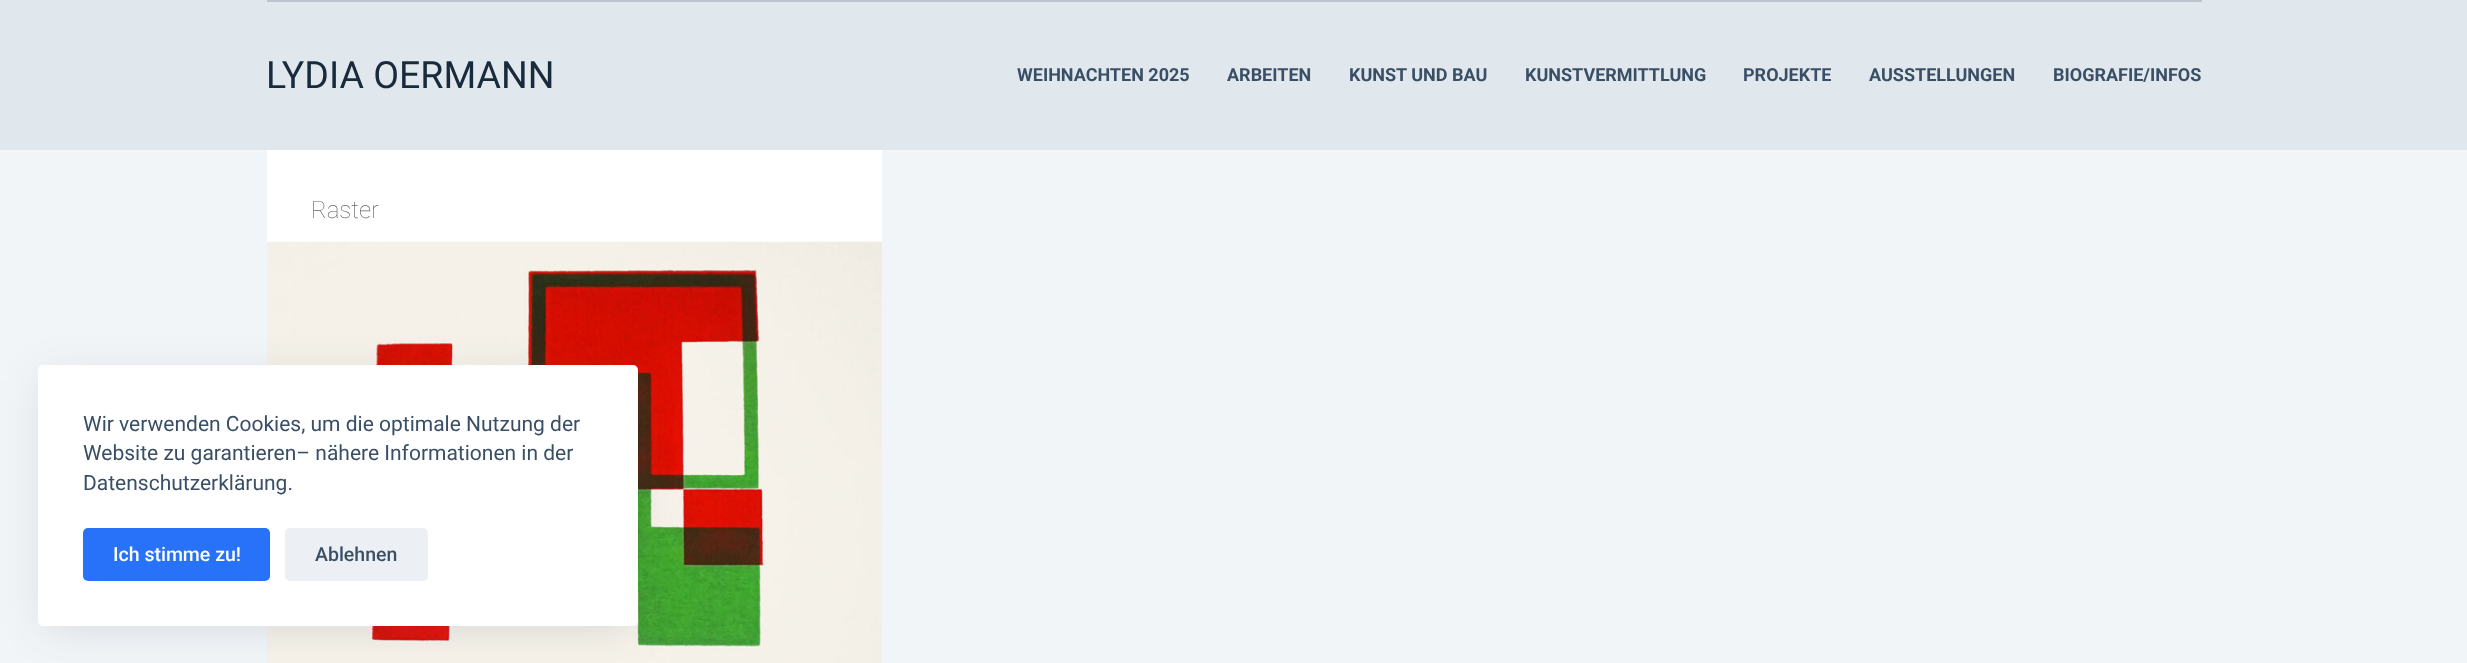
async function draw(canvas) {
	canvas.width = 2467;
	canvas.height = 663;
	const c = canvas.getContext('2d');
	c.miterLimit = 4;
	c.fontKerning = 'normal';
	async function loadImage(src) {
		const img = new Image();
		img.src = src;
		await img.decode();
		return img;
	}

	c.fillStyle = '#f2f5f7';
	c.fillRect(0, 0, 2467, 663);
	c.fillStyle = '#e1e8ed';
	c.fillRect(0, 0, 2467, 150);
	c.fillStyle = '#bdc6ce';
	c.fillRect(267, 0, 1935, 2);
	c.font = '37.5px Roboto';
	c.fillStyle = '#192a3d';
	c.fillText('LYDIA OERMANN', 266, 88);
	c.font = 'bold 18px Roboto';
	c.fillStyle = '#3a4f66';
	for (const [text, x, y] of [
		['WEIHNACHTEN 2025', 1017, 81],
		['ARBEITEN', 1227, 81],
		['KUNST UND BAU', 1349, 81],
		['KUNSTVERMITTLUNG', 1525, 81],
		['PROJEKTE', 1743, 81],
		['AUSSTELLUNGEN', 1869, 81],
		['BIOGRAFIE/INFOS', 2053, 81],
	]) {
		c.fillText(text, x, y);
	}
	c.fillStyle = '#fff';
	c.fillRect(267, 150, 615, 92);
	c.font = '100 24px Roboto';
	c.fillStyle = '#666262';
	c.fillText('Raster', 311, 218);
	c.drawImage(await loadImage('img1.png'), 267, 241, 615, 422);
	c.fillStyle = '#22386526';
	c.filter = 'blur(22.5px)';
	c.beginPath();
	c.rect(45, 380, 585, 246);
	c.fill();
	c.filter = 'none';
	c.fillStyle = '#fff';
	c.beginPath();
	c.roundRect(38, 365, 600, 261, 5);
	c.fill();
	c.font = '21px Roboto';
	c.fillStyle = '#3a4f66';
	for (const [text, x, y] of [
		['Wir verwenden Cookies, um die optimale Nutzung der', 83, 431],
		['Website zu garantieren– nähere Informationen in der', 83, 460],
		['Datenschutzerklärung.', 83, 490],
	]) {
		c.fillText(text, x, y);
	}
	c.fillStyle = '#2872fa';
	c.beginPath();
	c.roundRect(83, 528, 187, 53, 5);
	c.fill();
	c.font = '500 19.5px Roboto';
	c.fillStyle = '#fff';
	c.fillText('Ich stimme zu!', 113, 561);
	c.fillStyle = '#eceff3';
	c.beginPath();
	c.roundRect(285, 528, 143, 53, 5);
	c.fill();
	c.fillStyle = '#3a4f66';
	c.fillText('Ablehnen', 315, 561);
}

draw(document.querySelector('canvas'));
